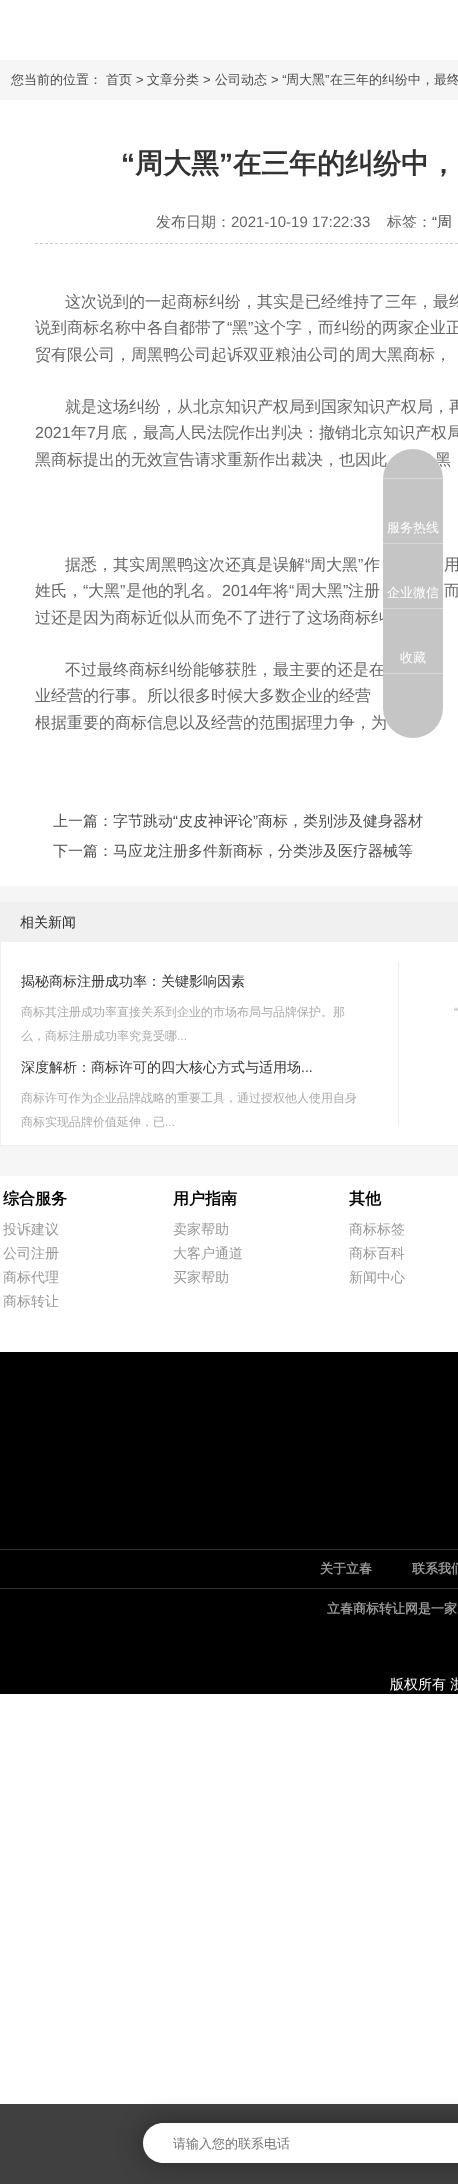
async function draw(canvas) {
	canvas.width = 458;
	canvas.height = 2184;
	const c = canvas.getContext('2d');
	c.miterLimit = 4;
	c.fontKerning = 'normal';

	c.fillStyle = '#fff';
	c.fillRect(0, 0, 458, 2184);
	c.fillStyle = '#f6f6f6';
	c.fillRect(0, 60, 458, 1116);
	c.font = '500 13px WenQuanYi Zen Hei';
	c.fillStyle = '#4c4c4c';
	c.fillText('您当前的位置： 首页', 11, 84);
	c.font = '13px Liberation Sans';
	c.fillText('>', 136, 84);
	c.font = '500 13px WenQuanYi Zen Hei';
	c.fillText('文章分类', 147, 84);
	c.font = '13px Liberation Sans';
	c.fillText('>', 203, 84);
	c.font = '500 13px WenQuanYi Zen Hei';
	c.fillText('公司动态', 215, 84);
	c.font = '13px Liberation Sans';
	c.fillText('> “', 271, 84);
	c.font = '500 13px WenQuanYi Zen Hei';
	c.fillText('周大黑', 286, 84);
	c.font = '13px Liberation Sans';
	c.fillText('”', 325, 84);
	c.font = '500 13px WenQuanYi Zen Hei';
	c.fillText('在三年的纠纷中，最终', 330, 84);
	c.fillStyle = '#fff';
	c.fillRect(0, 100, 458, 786);
	c.font = 'bold 28px Liberation Sans';
	c.fillStyle = '#333';
	c.fillText('“', 121, 173);
	c.font = 'bold 28px WenQuanYi Zen Hei';
	c.fillText('周大黑', 135, 173);
	c.font = 'bold 28px Liberation Sans';
	c.fillText('”', 219, 173);
	c.font = 'bold 28px WenQuanYi Zen Hei';
	c.fillText('在三年的纠纷中，', 233, 173);
	c.beginPath();
	c.moveTo(35, 243.5);
	c.lineTo(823, 243.5);
	c.strokeStyle = '#cdcdcd';
	c.setLineDash([3, 2]);
	c.stroke();
	c.font = '500 15px WenQuanYi Zen Hei';
	c.fillStyle = '#666';
	c.fillText('发布日期：', 156, 227);
	c.font = '15px Liberation Sans';
	c.fillText('2021-10-19 17:22:33', 231, 227);
	c.save();
	c.beginPath();
	c.rect(387, 215, 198, 13);
	c.clip();
	c.font = '500 15px WenQuanYi Zen Hei';
	c.fillText('标签：', 387, 227);
	c.restore();
	c.fillStyle = '#4c4c4c';
	c.fillText('“', 432, 227);
	c.save();
	c.beginPath();
	c.rect(387, 215, 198, 13);
	c.clip();
	c.font = '500 15px WenQuanYi Zen Hei';
	c.fillText('周', 437, 227);
	c.restore();
	c.font = '500 16px WenQuanYi Zen Hei';
	c.fillStyle = '#666';
	c.fillText('这次说到的一起商标纠纷，其实是已经维持了三年，最终', 65, 307);
	c.fillText('说到商标名称中各自都带了', 35, 333);
	c.font = '16px Liberation Sans';
	c.fillText('“', 227, 333);
	c.font = '500 16px WenQuanYi Zen Hei';
	c.fillText('黑', 232, 333);
	c.font = '16px Liberation Sans';
	c.fillText('”', 248, 333);
	c.font = '500 16px WenQuanYi Zen Hei';
	for (const [text, x, y] of [
		['这个字，而纠纷的两家企业正', 254, 333],
		['贸有限公司，周黑鸭公司起诉双亚粮油公司的周大黑商标，', 35, 360],
		['就是这场纠纷，从北京知识产权局到国家知识产权局，再', 65, 412],
	]) {
		c.fillText(text, x, y);
	}
	c.font = '16px Liberation Sans';
	c.fillText('2021', 35, 438);
	c.font = '500 16px WenQuanYi Zen Hei';
	c.fillText('年', 71, 438);
	c.font = '16px Liberation Sans';
	c.fillText('7', 87, 438);
	c.font = '500 16px WenQuanYi Zen Hei';
	for (const [text, x, y] of [
		['月底，最高人民法院作出判决：撤销北京知识产权局', 95, 438],
		['黑商标提出的无效宣告请求重新作出裁决，也因此', 35, 465],
		['黑', 435, 465],
		['据悉，其实周黑鸭这次还真是误解', 65, 570],
	]) {
		c.fillText(text, x, y);
	}
	c.font = '16px Liberation Sans';
	c.fillText('“', 305, 570);
	c.font = '500 16px WenQuanYi Zen Hei';
	c.fillText('周大黑', 310, 570);
	c.font = '16px Liberation Sans';
	c.fillText('”', 358, 570);
	c.font = '500 16px WenQuanYi Zen Hei';
	for (const [text, x, y] of [
		['作', 364, 570],
		['用', 444, 570],
		['姓氏，', 35, 596],
	]) {
		c.fillText(text, x, y);
	}
	c.font = '16px Liberation Sans';
	c.fillText('“', 83, 596);
	c.font = '500 16px WenQuanYi Zen Hei';
	c.fillText('大黑', 88, 596);
	c.font = '16px Liberation Sans';
	c.fillText('”', 120, 596);
	c.font = '500 16px WenQuanYi Zen Hei';
	c.fillText('是他的乳名。', 126, 596);
	c.font = '16px Liberation Sans';
	c.fillText('2014', 222, 596);
	c.font = '500 16px WenQuanYi Zen Hei';
	c.fillText('年将', 257, 596);
	c.font = '16px Liberation Sans';
	c.fillText('“', 289, 596);
	c.font = '500 16px WenQuanYi Zen Hei';
	c.fillText('周大黑', 295, 596);
	c.font = '16px Liberation Sans';
	c.fillText('”', 343, 596);
	c.font = '500 16px WenQuanYi Zen Hei';
	for (const [text, x, y] of [
		['注册', 348, 596],
		['而', 444, 596],
		['过还是因为商标近似从而免不了进行了这场商标纠', 35, 623],
		['不过最终商标纠纷能够获胜，最主要的还是在', 65, 675],
		['业经营的行事。所以很多时候大多数企业的经营', 35, 701],
		['根据重要的商标信息以及经营的范围据理力争，为', 35, 728],
	]) {
		c.fillText(text, x, y);
	}
	c.font = '500 15px WenQuanYi Zen Hei';
	c.fillStyle = '#4c4c4c';
	c.fillText('上一篇：字节跳动', 53, 826);
	c.font = '15px Liberation Sans';
	c.fillText('“', 173, 826);
	c.font = '500 15px WenQuanYi Zen Hei';
	c.fillText('皮皮神评论', 178, 826);
	c.font = '15px Liberation Sans';
	c.fillText('”', 253, 826);
	c.font = '500 15px WenQuanYi Zen Hei';
	c.fillText('商标，类别涉及健身器材', 258, 826);
	c.fillText('下一篇：马应龙注册多件新商标，分类涉及医疗器械等', 53, 856);
	c.fillStyle = '#f0f0f0';
	c.fillRect(0, 902, 458, 40);
	c.font = '500 14px WenQuanYi Zen Hei';
	c.fillStyle = '#2a2a2a';
	c.fillText('相关新闻', 20, 927);
	for (const [x, y, w, h, color] of [
		[1, 942, 457, 203, '#fff'],
		[0, 1145, 458, 1, '#f0f0f0'],
		[0, 942, 1, 204, '#f0f0f0'],
	]) {
		c.fillStyle = color;
		c.fillRect(x, y, w, h);
	}
	c.fillStyle = '#333';
	c.fillText('揭秘商标注册成功率：关键影响因素', 21, 986);
	c.font = '500 12px WenQuanYi Zen Hei';
	c.fillStyle = '#ababab';
	c.fillText('商标其注册成功率直接关系到企业的市场布局与品牌保护。那', 21, 1016);
	c.fillText('么，商标注册成功率究竟受哪', 21, 1040);
	c.font = '12px Liberation Sans';
	c.fillText('...', 177, 1040);
	c.font = '500 14px WenQuanYi Zen Hei';
	c.fillStyle = '#333';
	c.fillText('深度解析：商标许可的四大核心方式与适用场', 21, 1072);
	c.font = '14px Liberation Sans';
	c.fillText('...', 301, 1072);
	c.font = '500 12px WenQuanYi Zen Hei';
	c.fillStyle = '#ababab';
	c.fillText('商标许可作为企业品牌战略的重要工具，通过授权他人使用自身', 21, 1102);
	c.fillText('商标实现品牌价值延伸，已', 21, 1126);
	c.font = '12px Liberation Sans';
	c.fillText('...', 165, 1126);
	c.fillStyle = '#eee';
	c.fillRect(398, 962, 1, 165);
	c.fillStyle = '#ababab';
	c.fillText('“', 454, 1016);
	c.fillStyle = '#c5c5c5';
	c.beginPath();
	c.roundRect(383, 449, 60, 289, 30);
	c.fill();
	c.fillStyle = '#d8d8d8';
	c.fillRect(383, 478, 60, 1);
	c.font = '500 13px WenQuanYi Zen Hei';
	c.fillStyle = '#fff';
	c.fillText('服务热线', 387, 532);
	c.fillStyle = '#d8d8d8';
	c.fillRect(383, 543, 60, 1);
	c.fillStyle = '#fff';
	c.fillText('企业微信', 387, 597);
	c.fillStyle = '#d8d8d8';
	c.fillRect(383, 608, 60, 1);
	c.fillStyle = '#fff';
	c.fillText('收藏', 400, 662);
	c.fillStyle = '#d8d8d8';
	c.fillRect(383, 673, 60, 1);
	c.fillStyle = '#000';
	c.fillRect(0, 1352, 458, 342);
	c.font = 'bold 16px WenQuanYi Zen Hei';
	c.fillText('综合服务', 3, 1204);
	c.font = '500 14px WenQuanYi Zen Hei';
	c.fillStyle = '#989898';
	for (const [text, x, y] of [
		['投诉建议', 3, 1234],
		['公司注册', 3, 1258],
		['商标代理', 3, 1282],
		['商标转让', 3, 1306],
	]) {
		c.fillText(text, x, y);
	}
	c.font = 'bold 16px WenQuanYi Zen Hei';
	c.fillStyle = '#000';
	c.fillText('用户指南', 173, 1204);
	c.font = '500 14px WenQuanYi Zen Hei';
	c.fillStyle = '#989898';
	for (const [text, x, y] of [
		['卖家帮助', 173, 1234],
		['大客户通道', 173, 1258],
		['买家帮助', 173, 1282],
	]) {
		c.fillText(text, x, y);
	}
	c.font = 'bold 16px WenQuanYi Zen Hei';
	c.fillStyle = '#000';
	c.fillText('其他', 349, 1204);
	c.font = '500 14px WenQuanYi Zen Hei';
	c.fillStyle = '#989898';
	for (const [text, x, y] of [
		['商标标签', 349, 1234],
		['商标百科', 349, 1258],
		['新闻中心', 349, 1282],
	]) {
		c.fillText(text, x, y);
	}
	c.fillStyle = '#333';
	c.fillRect(0, 1549, 458, 1);
	c.fillRect(0, 1588, 458, 1);
	c.font = 'bold 13px WenQuanYi Zen Hei';
	c.fillStyle = '#989898';
	for (const [text, x, y] of [
		['关于立春', 320, 1573],
		['联系我们', 412, 1573],
		['立春商标转让网是一家', 327, 1613],
	]) {
		c.fillText(text, x, y);
	}
	c.font = '500 14px WenQuanYi Zen Hei';
	c.fillStyle = '#fff';
	c.fillText('版权所有 浙', 390, 1689);
	c.fillStyle = '#404040';
	c.fillRect(0, 2104, 458, 80);
	c.fillStyle = '#00000033';
	c.filter = 'blur(10px)';
	c.beginPath();
	c.roundRect(136, 2116, 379, 54, 27);
	c.fill();
	c.filter = 'none';
	c.fillStyle = '#fff';
	c.beginPath();
	c.moveTo(163, 2123);
	c.lineTo(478, 2123);
	c.lineTo(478, 2163);
	c.lineTo(163, 2163);
	c.bezierCurveTo(152, 2163, 143, 2154, 143, 2143);
	c.bezierCurveTo(143, 2132, 152, 2123, 163, 2123);
	c.closePath();
	c.fill();
	c.font = '500 13px WenQuanYi Zen Hei';
	c.fillStyle = '#757575';
	c.fillText('请输入您的联系电话', 173, 2148);
}

draw(document.querySelector('canvas'));
